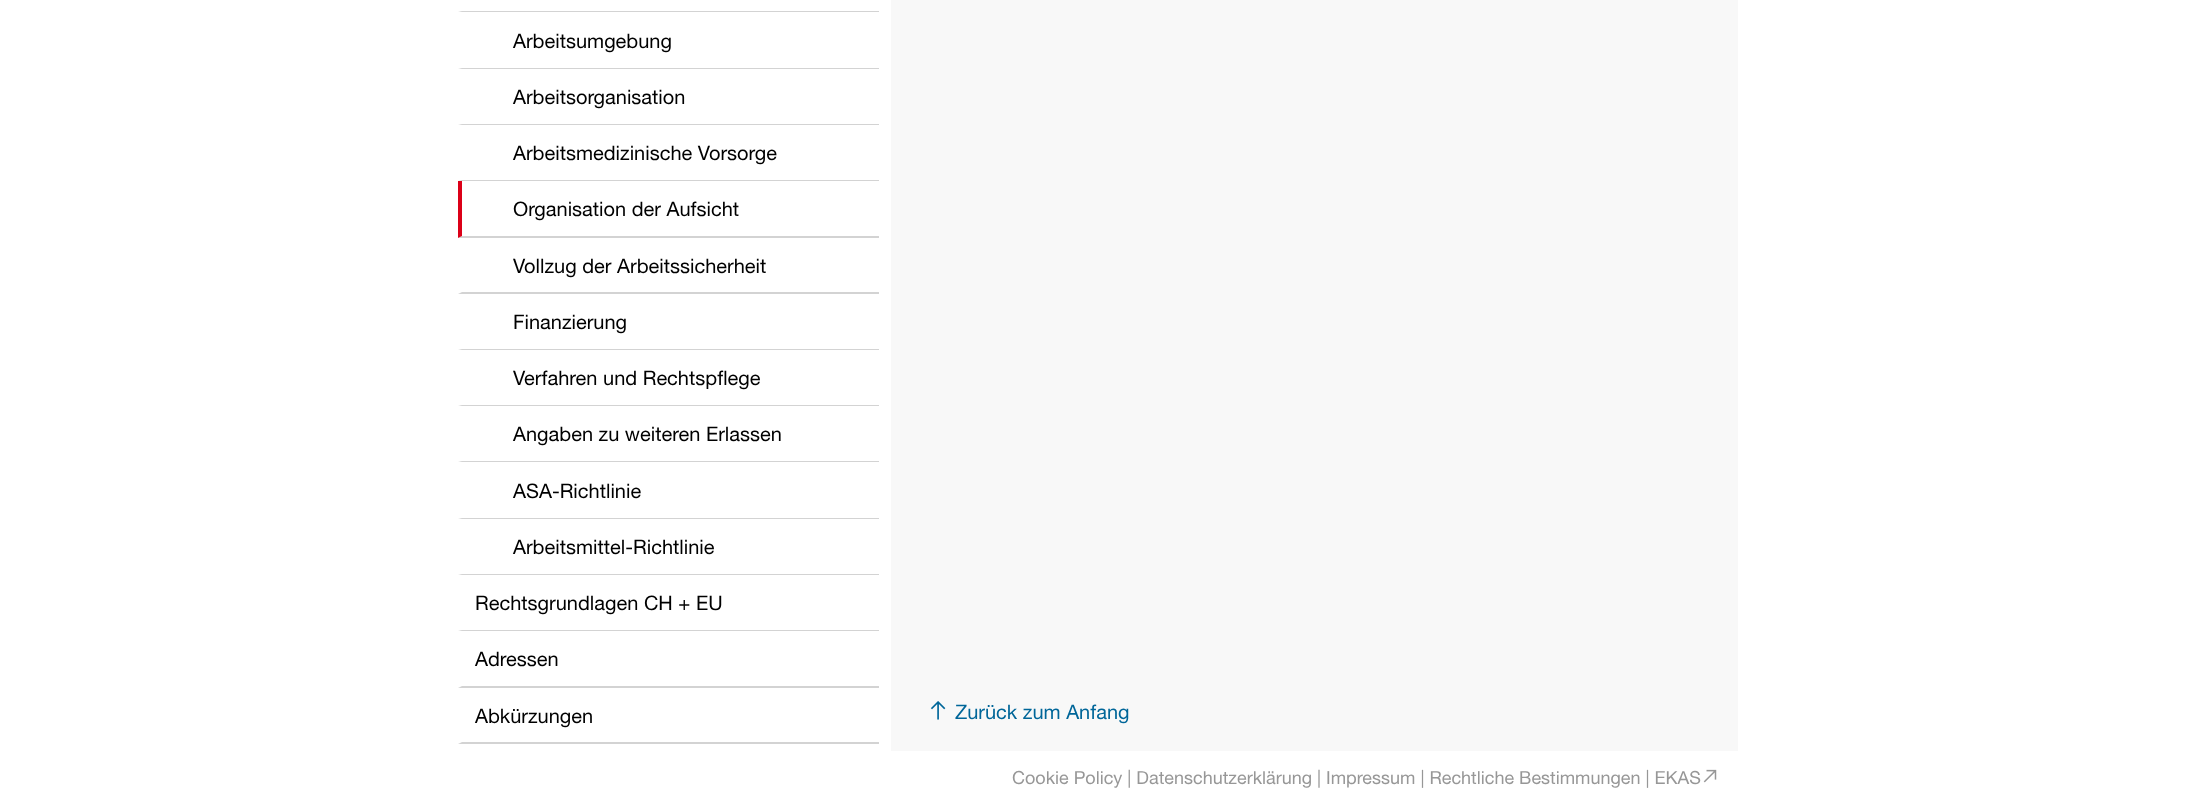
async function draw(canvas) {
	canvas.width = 2195;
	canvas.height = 807;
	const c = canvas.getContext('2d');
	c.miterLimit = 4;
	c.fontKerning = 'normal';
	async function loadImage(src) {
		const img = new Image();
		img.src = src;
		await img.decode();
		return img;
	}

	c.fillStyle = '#fff';
	c.fillRect(0, 0, 2195, 807);
	c.fillStyle = '#d3d3d3';
	c.beginPath();
	c.moveTo(879, 12);
	c.lineTo(458, 12);
	c.lineTo(462, 11);
	c.lineTo(879, 11);
	c.closePath();
	c.fill();
	c.beginPath();
	c.moveTo(879, 69);
	c.lineTo(458, 69);
	c.lineTo(462, 68);
	c.lineTo(879, 68);
	c.closePath();
	c.fill();
	c.font = '20px "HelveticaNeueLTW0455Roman"';
	c.fillStyle = '#000';
	c.fillText('Arbeitsumgebung', 513, 48);
	c.fillStyle = '#d3d3d3';
	c.beginPath();
	c.moveTo(879, 125);
	c.lineTo(458, 125);
	c.lineTo(462, 124);
	c.lineTo(879, 124);
	c.closePath();
	c.fill();
	c.fillStyle = '#000';
	c.fillText('Arbeitsorganisation', 513, 104);
	c.fillStyle = '#d3d3d3';
	c.beginPath();
	c.moveTo(879, 181);
	c.lineTo(458, 181);
	c.lineTo(462, 180);
	c.lineTo(879, 180);
	c.closePath();
	c.fill();
	c.fillStyle = '#000';
	c.fillText('Arbeitsmedizinische Vorsorge', 513, 160);
	c.fillStyle = '#d3d3d3';
	c.beginPath();
	c.moveTo(879, 238);
	c.lineTo(458, 238);
	c.lineTo(462, 236);
	c.lineTo(879, 236);
	c.closePath();
	c.fill();
	c.fillStyle = '#dc0018';
	c.beginPath();
	c.moveTo(458, 238);
	c.lineTo(458, 181);
	c.lineTo(462, 181);
	c.lineTo(462, 236);
	c.closePath();
	c.fill();
	c.fillStyle = '#000';
	c.fillText('Organisation der Aufsicht', 513, 216);
	c.fillStyle = '#d3d3d3';
	c.beginPath();
	c.moveTo(879, 294);
	c.lineTo(458, 294);
	c.lineTo(462, 292);
	c.lineTo(879, 292);
	c.closePath();
	c.fill();
	c.fillStyle = '#000';
	c.fillText('Vollzug der Arbeitssicherheit', 513, 273);
	c.fillStyle = '#d3d3d3';
	c.beginPath();
	c.moveTo(879, 350);
	c.lineTo(458, 350);
	c.lineTo(462, 349);
	c.lineTo(879, 349);
	c.closePath();
	c.fill();
	c.fillStyle = '#000';
	c.fillText('Finanzierung', 513, 329);
	c.fillStyle = '#d3d3d3';
	c.beginPath();
	c.moveTo(879, 406);
	c.lineTo(458, 406);
	c.lineTo(462, 405);
	c.lineTo(879, 405);
	c.closePath();
	c.fill();
	c.fillStyle = '#000';
	c.fillText('Verfahren und Rechtspflege', 513, 385);
	c.fillStyle = '#d3d3d3';
	c.beginPath();
	c.moveTo(879, 462);
	c.lineTo(458, 462);
	c.lineTo(462, 461);
	c.lineTo(879, 461);
	c.closePath();
	c.fill();
	c.fillStyle = '#000';
	c.fillText('Angaben zu weiteren Erlassen', 513, 441);
	c.fillStyle = '#d3d3d3';
	c.beginPath();
	c.moveTo(879, 519);
	c.lineTo(458, 519);
	c.lineTo(462, 518);
	c.lineTo(879, 518);
	c.closePath();
	c.fill();
	c.fillStyle = '#000';
	c.fillText('ASA-Richtlinie', 513, 498);
	c.fillStyle = '#d3d3d3';
	c.beginPath();
	c.moveTo(879, 575);
	c.lineTo(458, 575);
	c.lineTo(462, 574);
	c.lineTo(879, 574);
	c.closePath();
	c.fill();
	c.fillStyle = '#000';
	c.fillText('Arbeitsmittel-Richtlinie', 513, 554);
	c.fillStyle = '#d3d3d3';
	c.beginPath();
	c.moveTo(879, 631);
	c.lineTo(458, 631);
	c.lineTo(462, 630);
	c.lineTo(879, 630);
	c.closePath();
	c.fill();
	c.fillStyle = '#000';
	c.fillText('Rechtsgrundlagen CH + EU', 475, 610);
	c.fillStyle = '#d3d3d3';
	c.beginPath();
	c.moveTo(879, 688);
	c.lineTo(458, 688);
	c.lineTo(462, 686);
	c.lineTo(879, 686);
	c.closePath();
	c.fill();
	c.fillStyle = '#000';
	c.fillText('Adressen', 475, 666);
	c.fillStyle = '#d3d3d3';
	c.beginPath();
	c.moveTo(879, 744);
	c.lineTo(458, 744);
	c.lineTo(462, 742);
	c.lineTo(879, 742);
	c.closePath();
	c.fill();
	c.fillStyle = '#000';
	c.fillText('Abkürzungen', 475, 723);
	c.fillStyle = '#f8f8f8';
	c.fillRect(891, 0, 847, 751);
	c.drawImage(await loadImage('img1.png'), 930, 701, 16, 19);
	c.fillStyle = '#069';
	c.fillText('Zurück zum Anfang', 955, 719);
	c.font = '18px "HelveticaNeueLTW0455Roman"';
	c.fillStyle = '#979797';
	c.fillText('Cookie Policy | Datenschutzerklärung | Impressum | Rechtliche Bestimmungen | EKAS', 1012, 784);
	c.drawImage(await loadImage('img2.png'), 1703, 769, 14, 14);
}

draw(document.querySelector('canvas'));
